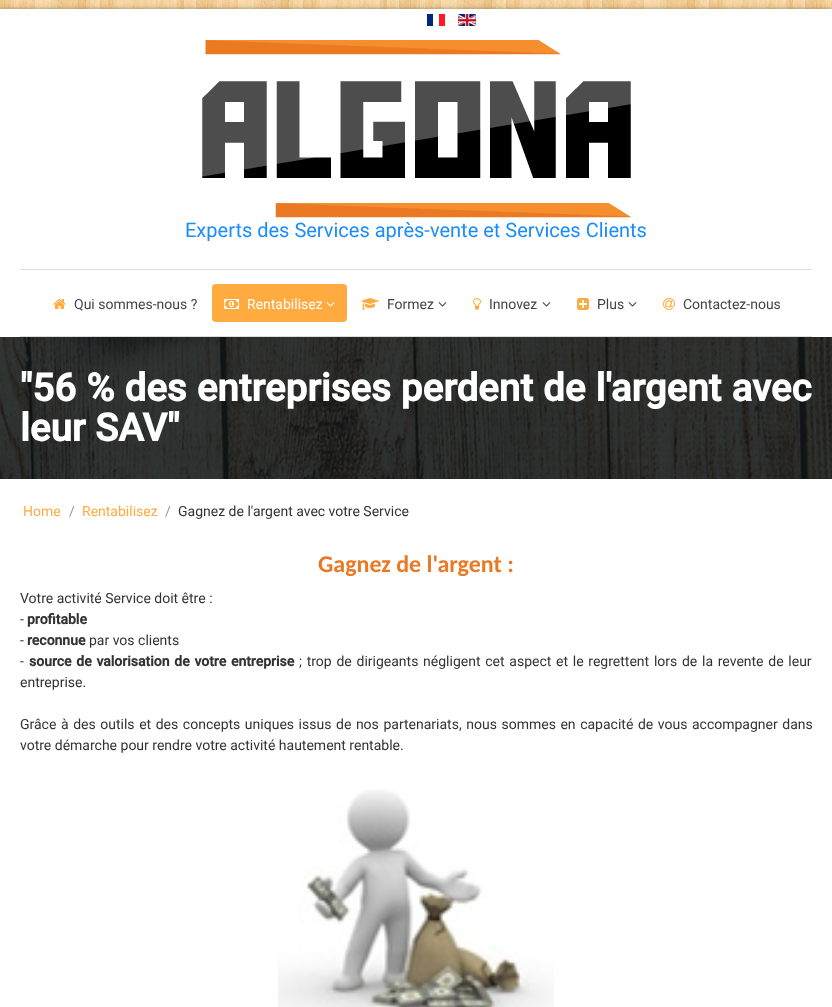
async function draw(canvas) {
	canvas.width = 832;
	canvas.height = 1007;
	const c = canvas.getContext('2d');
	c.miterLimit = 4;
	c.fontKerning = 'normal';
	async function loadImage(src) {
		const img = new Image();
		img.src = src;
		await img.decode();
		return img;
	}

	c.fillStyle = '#fff';
	c.fillRect(0, 0, 832, 1007);
	c.drawImage(await loadImage('img1.png'), 0, 0, 832, 9);
	c.fillStyle = '#00000045';
	c.filter = 'blur(3px)';
	c.beginPath();
	c.rect(0, 9, 832, 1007);
	c.fill();
	c.filter = 'none';
	c.fillStyle = '#fff';
	c.fillRect(0, 9, 832, 998);
	c.save();
	c.beginPath();
	c.rect(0, 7, 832, 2);
	c.clip();
	c.fillStyle = '#0000002b';
	c.filter = 'blur(2.5px)';
	c.beginPath();
	c.rect(0, 10, 832, 31);
	c.fill();
	c.filter = 'none';
	c.restore();
	c.drawImage(await loadImage('img2.png'), 427, 14, 18, 12);
	c.drawImage(await loadImage('img3.png'), 458, 14, 18, 12);
	c.fillRect(0, 40, 832, 5);
	c.drawImage(await loadImage('img4.png'), 202, 40, 429, 178);
	c.font = '20px Roboto';
	c.fillStyle = '#198cff';
	c.fillText('Experts des Services après-vente et Services Clients', 185, 237);
	c.fillStyle = '#ddd';
	c.fillRect(20, 269, 792, 1);
	c.fillRect(20, 336, 792, 1);
	c.drawImage(await loadImage('img5.png'), 53, 299, 13, 10);
	c.font = '14px Roboto';
	c.fillStyle = '#444';
	c.fillText('Qui sommes-nous ?', 74, 309);
	c.fillStyle = '#ffab40';
	c.beginPath();
	c.roundRect(212, 284, 135, 38, 4);
	c.fill();
	c.drawImage(await loadImage('img6.png'), 224, 299, 15, 10);
	c.fillStyle = '#fff';
	c.fillText('Rentabilisez', 247, 309);
	c.drawImage(await loadImage('img7.png'), 326, 302, 9, 5);
	c.drawImage(await loadImage('img8.png'), 361, 298, 18, 12);
	c.fillStyle = '#444';
	c.fillText('Formez', 387, 309);
	c.drawImage(await loadImage('img9.png'), 438, 302, 9, 5);
	c.drawImage(await loadImage('img10.png'), 473, 298, 8, 12);
	c.fillText('Innovez', 489, 309);
	c.drawImage(await loadImage('img9.png'), 542, 302, 9, 5);
	c.drawImage(await loadImage('img11.png'), 577, 298, 12, 12);
	c.fillText('Plus', 597, 309);
	c.drawImage(await loadImage('img9.png'), 628, 302, 9, 5);
	c.drawImage(await loadImage('img12.png'), 663, 298, 12, 12);
	c.fillText('Contactez-nous', 683, 309);
	c.drawImage(await loadImage('img13.png'), 0, 337, 832, 142);
	c.wordSpacing = '0.5px';
	c.font = 'bold 38.5px Roboto';
	c.fillStyle = '#fff';
	c.fillText('"56 % des entreprises perdent de l\'argent avec', 20, 401);
	c.wordSpacing = '0px';
	c.fillText('leur SAV"', 20, 441);
	c.font = '14px Roboto';
	c.fillStyle = '#ffab40';
	c.fillText('Home', 23, 516);
	c.fillStyle = '#999';
	c.fillText('/', 69, 516);
	c.fillStyle = '#ffab40';
	c.fillText('Rentabilisez', 82, 516);
	c.fillStyle = '#999';
	c.fillText('/', 165, 516);
	c.fillStyle = '#333';
	c.fillText('Gagnez de l\'argent avec votre Service', 178, 516);
	c.font = 'bold 24px Carlito';
	c.fillStyle = '#eb7923';
	c.fillText('Gagnez de l\'argent :', 318, 572);
	c.font = '14px Roboto';
	c.fillStyle = '#333';
	c.fillText('Votre activité Service doit être :', 20, 603);
	c.fillText('-', 20, 624);
	c.font = 'bold 14px Roboto';
	c.fillText('profitable', 27, 624);
	c.font = '14px Roboto';
	c.fillText('-', 20, 645);
	c.font = 'bold 14px Roboto';
	c.fillText('reconnue', 27, 645);
	c.font = '14px Roboto';
	c.fillText('par vos clients', 89, 645);
	c.fillText('-', 20, 666);
	c.wordSpacing = '1.25px';
	c.font = 'bold 14px Roboto';
	c.fillText('source de valorisation de votre entreprise', 29, 666);
	c.font = '14px Roboto';
	c.fillText('; trop de dirigeants négligent cet aspect et le regrettent lors de la revente de leur', 299, 666);
	c.wordSpacing = '0px';
	c.fillText('entreprise.', 20, 687);
	c.wordSpacing = '1.1px';
	c.fillText('Grâce à des outils et des concepts uniques issus de nos partenariats, nous sommes en capacité de vous accompagner dans', 20, 729);
	c.wordSpacing = '0px';
	c.fillText('votre démarche pour rendre votre activité hautement rentable.', 20, 750);
	c.drawImage(await loadImage('img14.png'), 278, 789, 276, 218);
}

draw(document.querySelector('canvas'));
